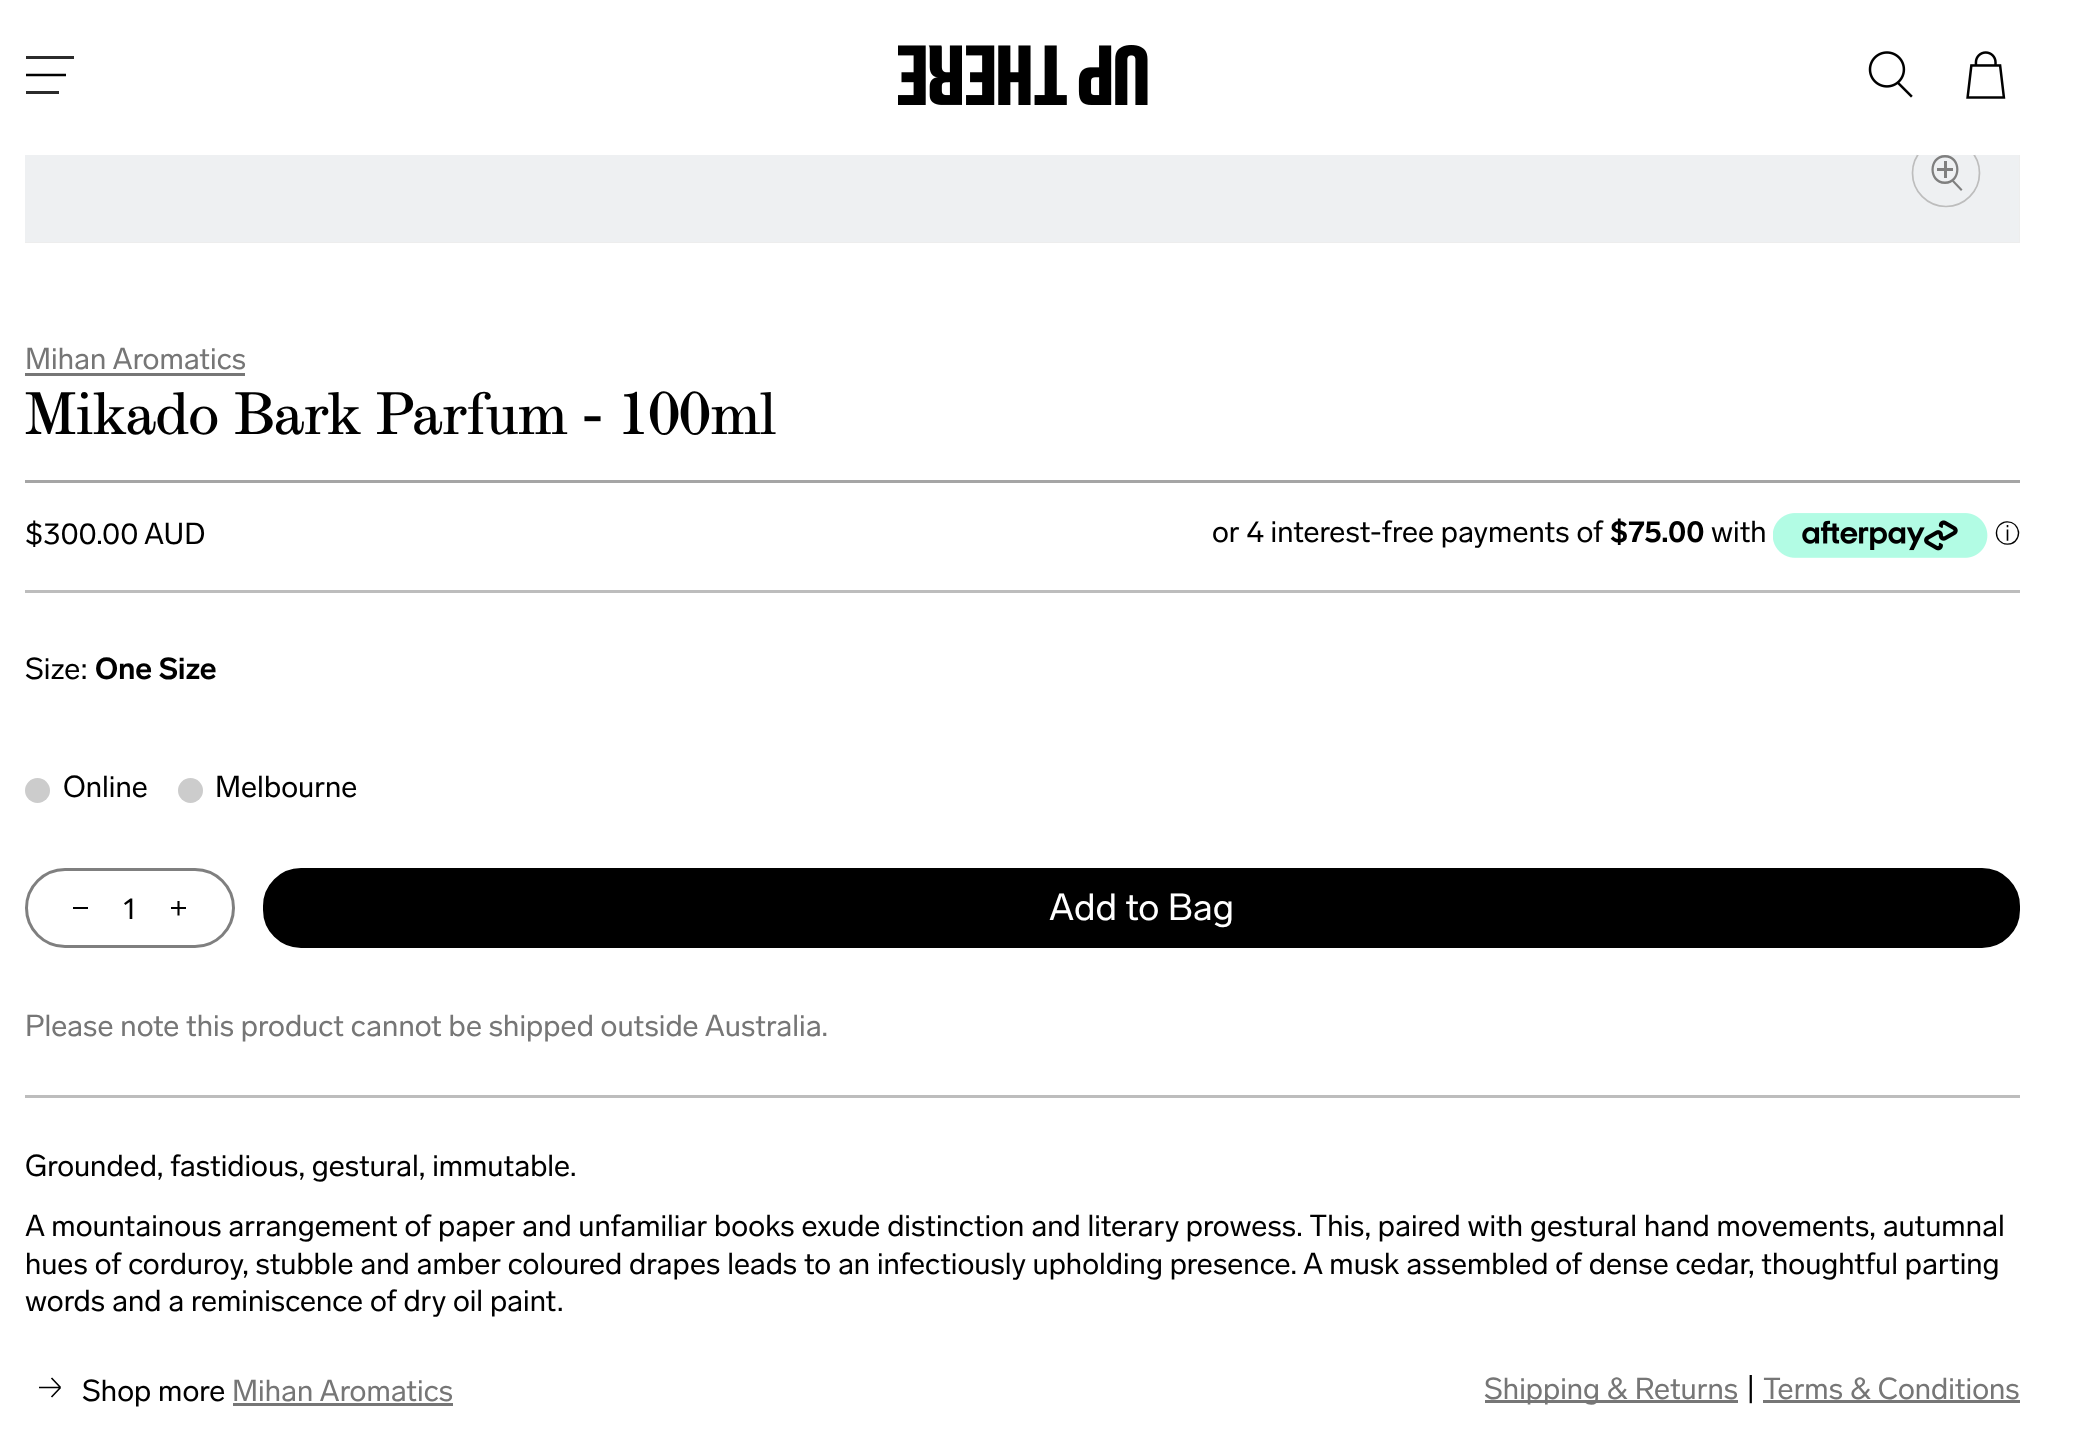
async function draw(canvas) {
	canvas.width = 2081;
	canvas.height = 1454;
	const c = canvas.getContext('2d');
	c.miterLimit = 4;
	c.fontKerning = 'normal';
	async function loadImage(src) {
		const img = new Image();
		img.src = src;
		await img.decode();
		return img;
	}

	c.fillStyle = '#fff';
	c.fillRect(0, 0, 2081, 1454);
	c.fillStyle = '#ededed';
	c.fillRect(25, 155, 1995, 88);
	c.fillStyle = '#eef0f2';
	c.fillRect(25, 155, 1994, 87);
	c.beginPath();
	c.arc(1946, 173, 33.5, 0, 2 * Math.PI);
	c.strokeStyle = '#bdbdbd';
	c.lineWidth = 1.7;
	c.stroke();
	c.fillStyle = '#fff';
	c.fillRect(1917, 138, 58, 17);
	c.fillStyle = '#2b2b2b';
	c.fillRect(26, 56, 48, 3);
	c.beginPath();
	c.moveTo(26, 75);
	c.lineTo(66, 75);
	c.strokeStyle = '#000';
	c.lineWidth = 2.5;
	c.stroke();
	c.fillRect(26, 91, 33, 3);
	c.drawImage(await loadImage('img1.png'), 898, 45, 250, 60);
	c.drawImage(await loadImage('img2.png'), 1868, 51, 45, 47);
	c.drawImage(await loadImage('img3.png'), 1966, 51, 40, 48);
	c.fillStyle = '#7f7f7f';
	c.beginPath();
	c.moveTo(1945, 181.5);
	c.bezierCurveTo(1960, 181.5, 1960, 157.5, 1945, 157.5);
	c.bezierCurveTo(1930, 157.5, 1930, 181.5, 1945, 181.5);
	c.closePath();
	c.moveTo(1945, 184);
	c.bezierCurveTo(1963, 184, 1963, 155, 1945, 155);
	c.bezierCurveTo(1927, 155, 1927, 184, 1945, 184);
	c.closePath();
	c.fill('evenodd');
	c.fillRect(1944, 161, 3, 17);
	c.fillRect(1937, 168, 16, 3);
	c.beginPath();
	c.moveTo(1961, 191);
	c.lineTo(1952, 181.5);
	c.lineTo(1953.5, 180);
	c.lineTo(1962.5, 189.5);
	c.closePath();
	c.fill('evenodd');
	c.font = '30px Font';
	c.fillStyle = '#767676';
	c.fillText('Mihan Aromatics', 25, 369);
	c.fillRect(25, 373, 220, 3);
	c.font = '62.5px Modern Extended';
	c.fillStyle = '#000';
	c.fillText('Mikado Bark Parfum - 100ml', 25, 434);
	c.fillStyle = '#a5a5a5';
	c.fillRect(25, 480, 1995, 3);
	c.font = '30px Font';
	c.fillStyle = '#000';
	for (const [text, x, y] of [
		['$300.00', 25, 544],
		['AUD', 144, 544],
		['or 4 interest-free payments of', 1212, 542],
	]) {
		c.fillText(text, x, y);
	}
	c.font = 'bold 30px Font';
	c.fillText('$75.00', 1610, 542);
	c.font = '30px Font';
	c.fillText('with', 1711, 542);
	c.drawImage(await loadImage('img4.png'), 1773, 513, 215, 45);
	c.font = '500 25px WenQuanYi Zen Hei';
	c.fillText('ⓘ', 1995, 542);
	c.fillStyle = '#bdbdbd';
	c.fillRect(25, 590, 1995, 3);
	c.font = '30px Font';
	c.fillStyle = '#000';
	c.fillText('Size:', 25, 679);
	c.font = 'bold 30px Font';
	c.fillText('One Size', 95, 679);
	c.fillStyle = '#ccc';
	c.beginPath();
	c.arc(37.5, 790.5, 12.5, 0, 2 * Math.PI);
	c.fill();
	c.font = '30px Font';
	c.fillStyle = '#000';
	c.fillText('Online', 63, 797);
	c.fillStyle = '#ccc';
	c.beginPath();
	c.arc(190.5, 790.5, 12.5, 0, 2 * Math.PI);
	c.fill();
	c.fillStyle = '#000';
	c.fillText('Melbourne', 215, 797);
	c.beginPath();
	c.roundRect(26.5, 869.5, 207, 77, 38.5);
	c.strokeStyle = '#7f7f7f';
	c.lineWidth = 3;
	c.stroke();
	c.fillRect(73, 907, 15, 2);
	c.fillText('1', 123, 919);
	c.beginPath();
	c.moveTo(178.5, 901);
	c.lineTo(178.5, 915.5);
	c.strokeStyle = '#000';
	c.lineWidth = 2.1;
	c.stroke();
	c.fillRect(171, 907, 15, 2);
	c.beginPath();
	c.roundRect(264.5, 869.5, 1754, 77, 36.5);
	c.fill();
	c.lineWidth = 3;
	c.stroke();
	c.font = '37.5px Font';
	c.fillStyle = '#fff';
	c.fillText('Add to Bag', 1049, 920);
	c.font = '30px Font';
	c.fillStyle = '#767676';
	c.fillText('Please note this product cannot be shipped outside Australia.', 25, 1036);
	c.fillStyle = '#bdbdbd';
	c.fillRect(25, 1095, 1995, 3);
	c.fillStyle = '#000';
	for (const [text, x, y] of [
		['Grounded, fastidious, gestural, immutable.', 25, 1176],
		['A mountainous arrangement of paper and unfamiliar books exude distinction and literary prowess. This, paired with gestural hand movements, autumnal', 25, 1236],
		['hues of corduroy, stubble and amber coloured drapes leads to an infectiously upholding presence. A musk assembled of dense cedar, thoughtful parting', 25, 1274],
		['words and a reminiscence of dry oil paint.', 25, 1311],
	]) {
		c.fillText(text, x, y);
	}
	c.beginPath();
	c.moveTo(39, 1387.5);
	c.lineTo(60.5, 1387.5);
	c.moveTo(60.5, 1387.5);
	c.lineTo(51.5, 1378);
	c.moveTo(60.5, 1387.5);
	c.lineTo(51.5, 1397);
	c.lineWidth = 1.6;
	c.stroke();
	c.fillText('Shop more', 82, 1401);
	c.fillStyle = '#767676';
	c.fillText('Mihan Aromatics', 232, 1401);
	c.fillRect(233, 1403, 220, 3);
	c.fillRect(1485, 1400, 253, 3);
	c.fillText('Shipping & Returns', 1484, 1399);
	c.fillStyle = '#000';
	c.fillText('|', 1745, 1399);
	c.fillStyle = '#767676';
	c.fillText('Terms & Conditions', 1763, 1399);
	c.fillRect(1763, 1400, 257, 3);
}

draw(document.querySelector('canvas'));
